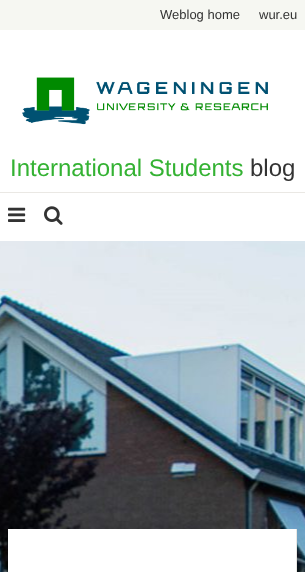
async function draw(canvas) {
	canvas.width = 305;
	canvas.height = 572;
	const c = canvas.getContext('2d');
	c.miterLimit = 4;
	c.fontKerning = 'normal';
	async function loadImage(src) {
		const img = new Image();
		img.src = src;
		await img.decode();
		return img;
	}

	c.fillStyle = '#fff';
	c.fillRect(0, 0, 305, 572);
	c.fillStyle = '#f6f7f2';
	c.fillRect(0, 0, 305, 30);
	c.font = '13px Liberation Sans';
	c.fillStyle = '#333';
	c.fillText('Weblog home', 160, 19);
	c.fillText('wur.eu', 259, 19);
	c.fillStyle = '#eae8e4';
	c.fillRect(0, 192, 305, 1);
	c.drawImage(await loadImage('img1.png'), 22, 77, 246, 48);
	c.font = '24px Liberation Sans';
	c.fillStyle = '#34b233';
	c.fillText('International Students', 10, 176);
	c.fillStyle = '#333';
	c.fillText('blog', 250, 176);
	c.drawImage(await loadImage('img2.png'), 8, 207, 18, 15);
	c.drawImage(await loadImage('img3.png'), 44, 206, 19, 19);
	c.drawImage(await loadImage('img4.png'), 0, 241, 305, 331);
	c.fillStyle = '#fff';
	c.fillRect(8, 529, 288, 43);
	c.fillStyle = '#eae8e4';
	c.fillRect(296, 529, 1, 43);
}

draw(document.querySelector('canvas'));
